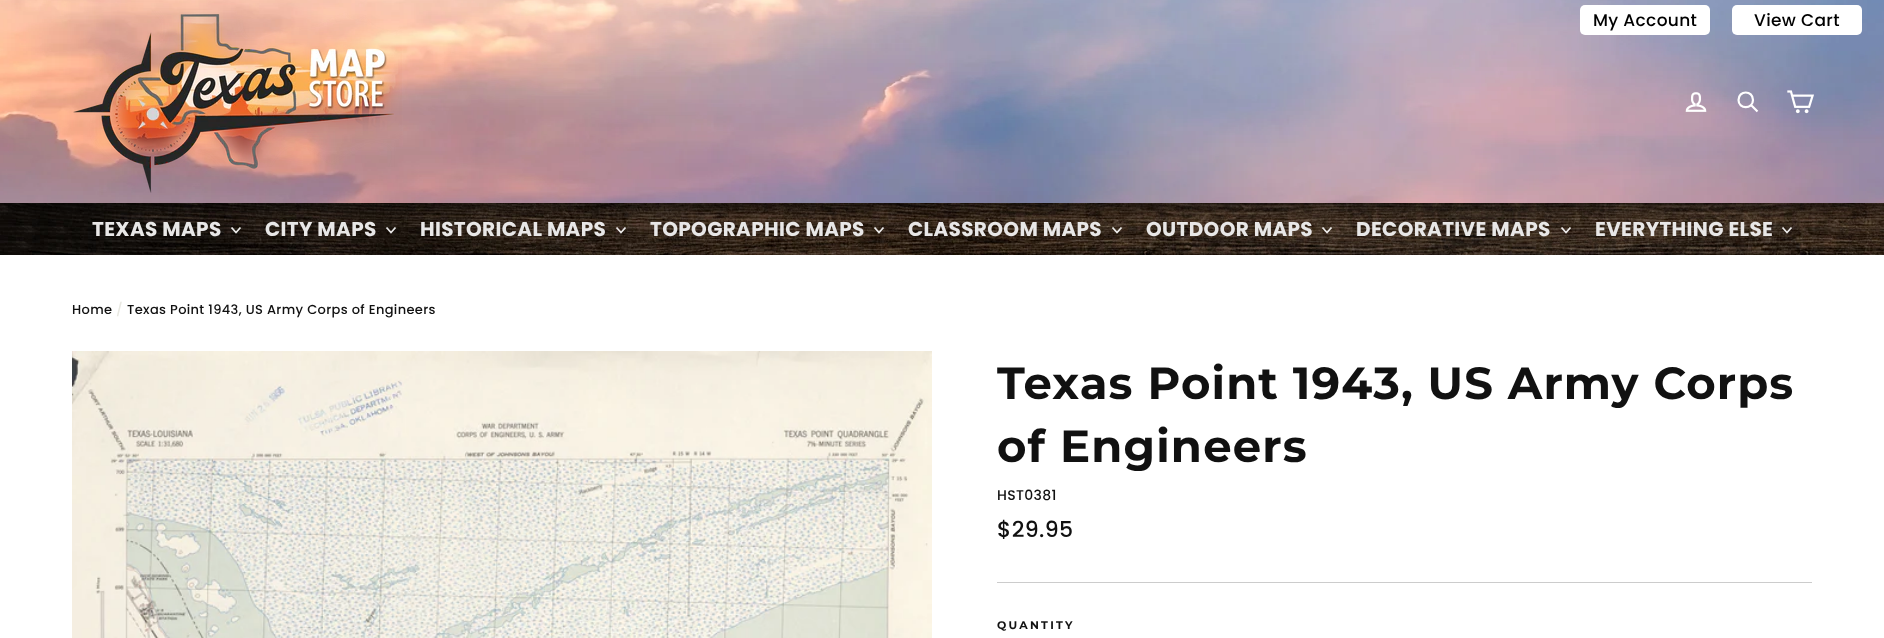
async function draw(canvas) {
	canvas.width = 1884;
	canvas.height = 638;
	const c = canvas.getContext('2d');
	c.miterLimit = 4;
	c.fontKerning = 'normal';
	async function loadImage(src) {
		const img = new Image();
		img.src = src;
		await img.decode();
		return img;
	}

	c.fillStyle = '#fff';
	c.fillRect(0, 0, 1884, 638);
	c.drawImage(await loadImage('img5.png'), 0, 203, 1884, 52);
	c.fillStyle = '#00000066';
	c.filter = 'blur(5px)';
	c.beginPath();
	c.rect(0, 8, 1884, 203);
	c.fill();
	c.filter = 'none';
	c.drawImage(await loadImage('img1.png'), 0, 0, 1884, 203);
	c.drawImage(await loadImage('img2.png'), 73, 10, 329, 183);
	c.drawImage(await loadImage('img3.png'), 1685, 92, 22, 20);
	c.beginPath();
	c.moveTo(1753, 100);
	c.bezierCurveTo(1753, 109.5, 1738.5, 109.5, 1738.5, 100);
	c.bezierCurveTo(1738.5, 90, 1753, 90, 1753, 100);
	c.closePath();
	c.moveTo(1757.5, 111.5);
	c.lineTo(1751, 105);
	c.strokeStyle = '#fff';
	c.lineWidth = 2.2;
	c.stroke();
	c.drawImage(await loadImage('img4.png'), 1787, 90, 27, 24);
	c.fillStyle = '#fff';
	c.beginPath();
	c.roundRect(1580, 5, 130, 30, 5);
	c.fill();
	c.letterSpacing = '0.35px';
	c.font = '500 17px Poppins';
	c.fillStyle = '#000';
	c.fillText('My Account', 1593, 26);
	c.fillStyle = '#fff';
	c.beginPath();
	c.roundRect(1732, 5, 130, 30, 5);
	c.fill();
	c.fillStyle = '#000';
	c.fillText('View Cart', 1754, 26);
	c.font = 'bold 20px Poppins';
	c.fillStyle = '#e8e7e7';
	c.fillText('TEXAS MAPS', 92, 236);
	c.beginPath();
	c.moveTo(231.5, 227.5);
	c.lineTo(236, 232.5);
	c.lineTo(240.5, 227.5);
	c.strokeStyle = '#ffffffe6';
	c.lineWidth = 1.8;
	c.stroke();
	c.fillText('CITY MAPS', 265, 236);
	c.beginPath();
	c.moveTo(386.5, 227.5);
	c.lineTo(391, 232.5);
	c.lineTo(395.5, 227.5);
	c.stroke();
	c.fillText('HISTORICAL MAPS', 420, 236);
	c.beginPath();
	c.moveTo(616.5, 227.5);
	c.lineTo(621, 232.5);
	c.lineTo(625.5, 227.5);
	c.stroke();
	c.fillText('TOPOGRAPHIC MAPS', 650, 236);
	c.beginPath();
	c.moveTo(874.5, 227.5);
	c.lineTo(879, 232.5);
	c.lineTo(883.5, 227.5);
	c.stroke();
	c.fillText('CLASSROOM MAPS', 908, 236);
	c.beginPath();
	c.moveTo(1112.5, 227.5);
	c.lineTo(1117, 232.5);
	c.lineTo(1121.5, 227.5);
	c.stroke();
	c.fillText('OUTDOOR MAPS', 1146, 236);
	c.beginPath();
	c.moveTo(1322.5, 227.5);
	c.lineTo(1327, 232.5);
	c.lineTo(1331.5, 227.5);
	c.stroke();
	c.fillText('DECORATIVE MAPS', 1356, 236);
	c.beginPath();
	c.moveTo(1561.5, 227.5);
	c.lineTo(1566, 232.5);
	c.lineTo(1570.5, 227.5);
	c.stroke();
	c.fillText('EVERYTHING ELSE', 1595, 236);
	c.beginPath();
	c.moveTo(1782.5, 227.5);
	c.lineTo(1787, 232.5);
	c.lineTo(1791.5, 227.5);
	c.stroke();
	c.font = '500 13px Poppins';
	c.fillStyle = '#111';
	c.fillText('Home', 72, 314);
	c.fillStyle = '#e8e8e1';
	c.fillText('/', 116, 314);
	c.fillStyle = '#111';
	c.fillText('Texas Point 1943, US Army Corps of Engineers', 127, 314);
	c.drawImage(await loadImage('img6.png'), 72, 351, 860, 287);
	c.letterSpacing = '1.1px';
	c.font = '100 45px Montserrat';
	c.fillText('Texas Point 1943, US Army Corps', 997, 399);
	c.fillText('of Engineers', 997, 462);
	c.letterSpacing = '0.35px';
	c.font = '500 14px Poppins';
	c.fillText('HST0381', 997, 500);
	c.font = '500 22px Poppins';
	c.fillText('$29.95', 997, 537);
	c.fillStyle = '#ccc';
	c.fillRect(997, 582, 815, 1);
	c.letterSpacing = '2.25px';
	c.font = '100 11px Montserrat';
	c.fillStyle = '#111';
	c.fillText('QUANTITY', 997, 629);
}

draw(document.querySelector('canvas'));
